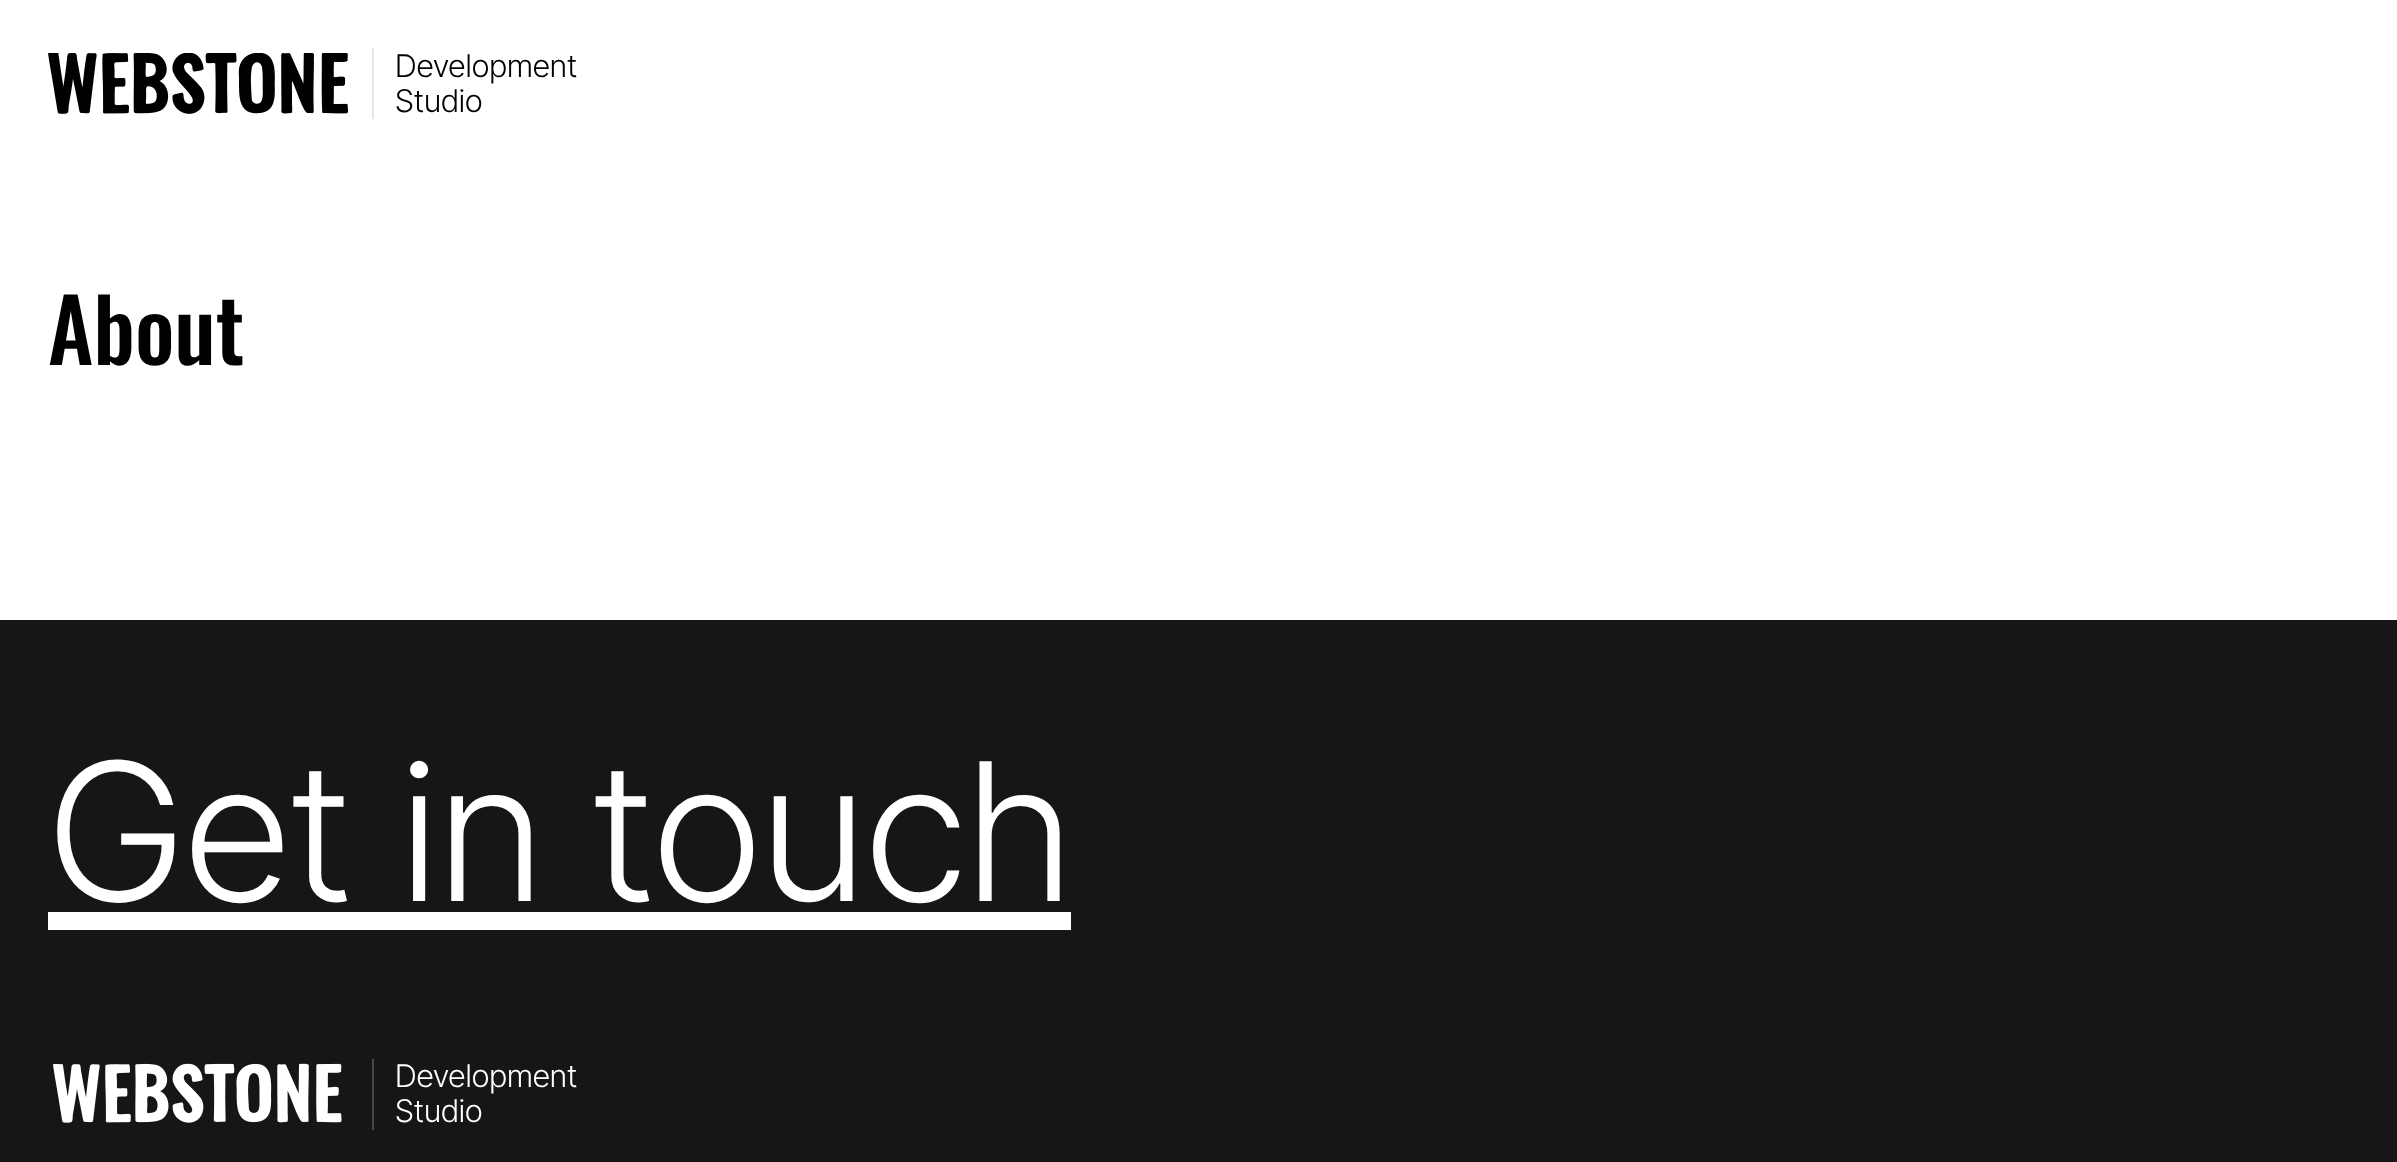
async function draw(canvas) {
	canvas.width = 2397;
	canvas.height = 1162;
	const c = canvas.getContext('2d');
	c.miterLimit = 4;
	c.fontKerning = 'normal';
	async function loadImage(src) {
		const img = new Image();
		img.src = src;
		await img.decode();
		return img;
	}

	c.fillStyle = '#fff';
	c.fillRect(0, 0, 2397, 1162);
	c.drawImage(await loadImage('img1.png'), 48, 53, 300, 61);
	c.fillStyle = '#e6e6e6';
	c.fillRect(372, 48, 2, 71);
	c.font = '300 31.25px Inter Tight';
	c.fillStyle = '#010101';
	c.fillText('Development', 395, 77);
	c.fillText('Studio', 395, 112);
	c.font = '500 87px Oswald';
	c.fillText('About', 48, 365);
	c.fillStyle = '#161616';
	c.fillRect(0, 620, 2397, 542);
	c.font = '300 192px Inter Tight';
	c.fillStyle = '#fff';
	c.fillText('Get in touch', 48, 901);
	c.fillRect(48, 912, 1023, 18);
	c.drawImage(await loadImage('img2.png'), 52, 1063, 290, 60);
	c.fillStyle = '#484848';
	c.fillRect(372, 1059, 2, 71);
	c.font = '300 31.25px Inter Tight';
	c.fillStyle = '#fff';
	c.fillText('Development', 395, 1087);
	c.fillText('Studio', 395, 1122);
}

draw(document.querySelector('canvas'));
